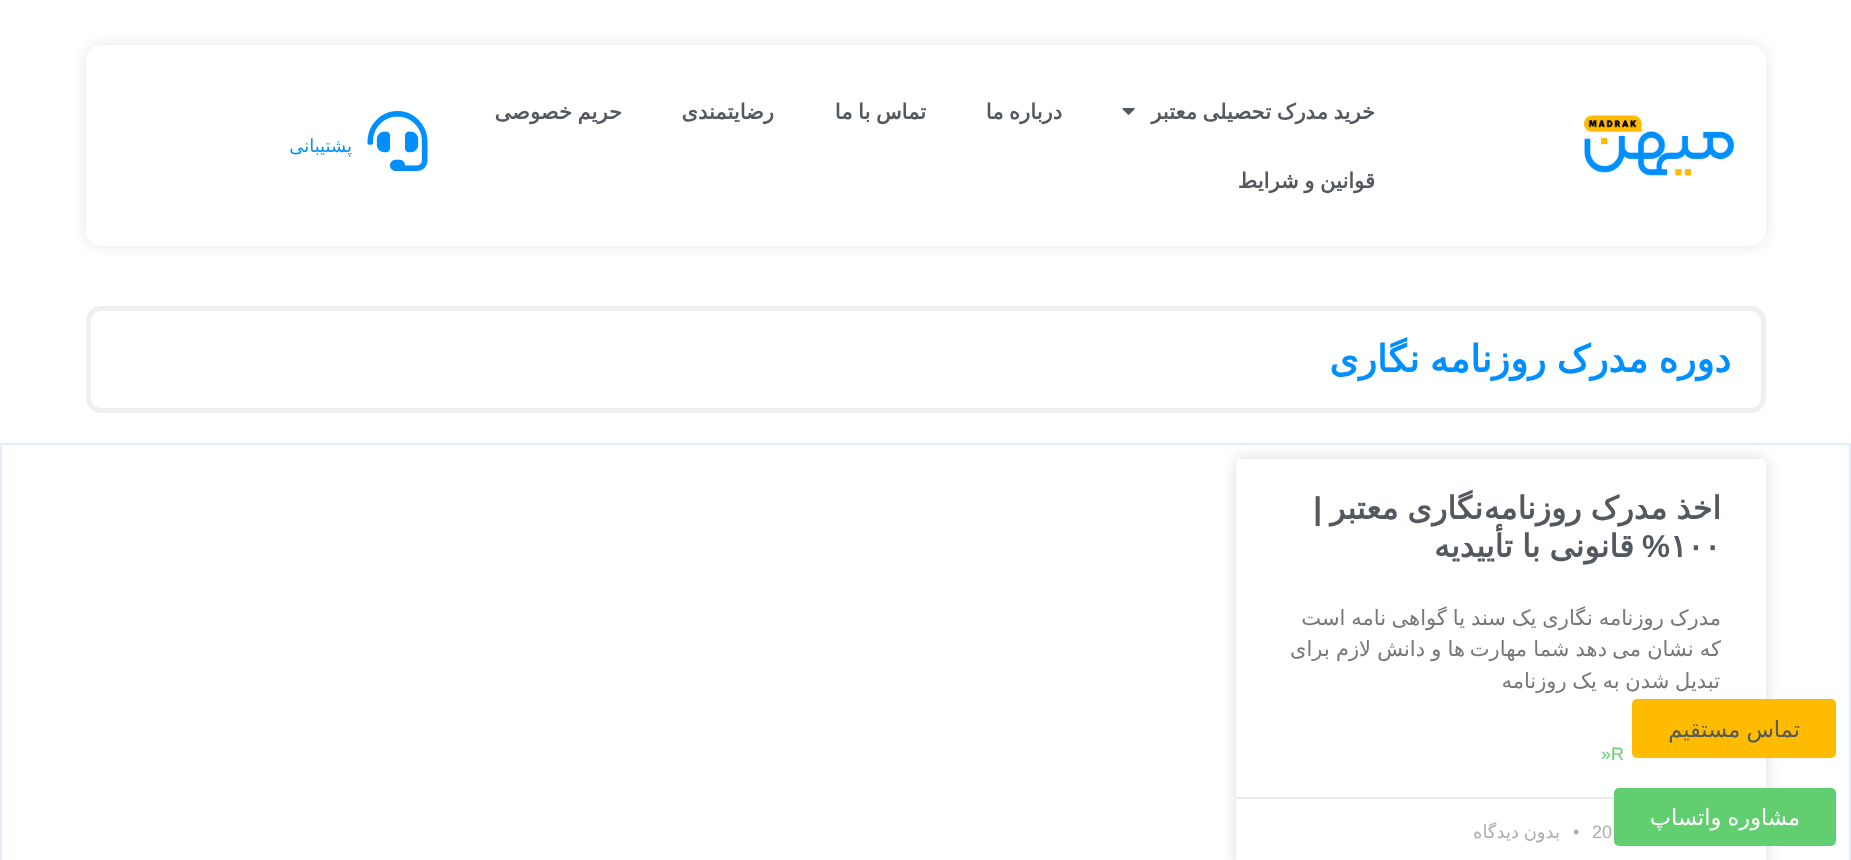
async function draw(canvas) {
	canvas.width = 1851;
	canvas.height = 860;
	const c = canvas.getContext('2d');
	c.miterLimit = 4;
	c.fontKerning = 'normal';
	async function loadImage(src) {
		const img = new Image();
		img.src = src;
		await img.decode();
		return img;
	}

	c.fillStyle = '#fff';
	c.fillRect(0, 0, 1851, 860);
	c.fillStyle = '#0000001a';
	c.filter = 'blur(7.5px)';
	c.beginPath();
	c.roundRect(86, 45, 1680, 201, 15);
	c.fill();
	c.filter = 'none';
	c.fillStyle = '#fff';
	c.beginPath();
	c.roundRect(86, 45, 1680, 201, 15);
	c.fill();
	c.drawImage(await loadImage('img1.png'), 1584, 115, 150, 61);
	c.wordSpacing = '-1px';
	c.direction = 'rtl';
	c.font = 'bold 21px DejaVu Sans';
	c.fillStyle = '#54595f';
	c.fillText('خرید مدرک تحصیلی معتبر', 1375, 119);
	c.drawImage(await loadImage('img2.png'), 1122, 108, 13, 7);
	c.fillText('درباره ما', 1062, 119);
	c.fillText('تماس با ما', 926, 119);
	c.wordSpacing = '0px';
	c.fillText('رضایتمندی', 774, 119);
	c.wordSpacing = '-1px';
	c.fillText('حریم خصوصی', 622, 119);
	c.fillText('قوانین و شرایط', 1375, 188);
	c.drawImage(await loadImage('img3.png'), 367, 111, 61, 60);
	c.wordSpacing = '0px';
	c.font = '18px DejaVu Sans';
	c.fillStyle = '#008fff';
	c.fillText('پشتیبانی', 352, 152);
	c.beginPath();
	c.roundRect(88.5, 308.5, 1675, 102, 12.5);
	c.strokeStyle = '#efefef';
	c.lineWidth = 5;
	c.stroke();
	c.wordSpacing = '-1.5px';
	c.font = 'bold 37.5px DejaVu Sans';
	c.fillText('دوره مدرک روزنامه نگاری', 1731, 372);
	c.strokeStyle = '#e1ecff';
	c.lineWidth = 2;
	c.strokeRect(1, 444, 1849, 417);
	c.fillStyle = '#00000026';
	c.filter = 'blur(7.5px)';
	c.beginPath();
	c.roundRect(1236, 459, 530, 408, 5);
	c.fill();
	c.filter = 'none';
	c.fillStyle = '#fff';
	c.beginPath();
	c.roundRect(1236, 459, 530, 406, 5);
	c.fill();
	c.wordSpacing = '-1px';
	c.font = 'bold 31.5px DejaVu Sans';
	c.fillStyle = '#54595f';
	c.fillText('اخذ مدرک روزنامه', 1721, 519);
	c.fillText('نگاری معتبر', 1483, 519);
	c.wordSpacing = '0px';
	c.font = 'bold 31.5px Liberation Sans';
	c.fillText('|', 1322, 519);
	c.direction = 'ltr';
	c.font = 'bold 31.5px DejaVu Sans';
	c.fillText('۱۰۰', 1670, 557);
	c.direction = 'rtl';
	c.font = 'bold 31.5px Liberation Sans';
	c.fillText('%', 1670, 557);
	c.wordSpacing = '-1px';
	c.font = 'bold 31.5px DejaVu Sans';
	c.fillText('قانونی با تأییدیه', 1634, 557);
	c.wordSpacing = '-0.75px';
	c.font = '21px DejaVu Sans';
	c.fillStyle = '#777';
	c.fillText('مدرک روزنامه نگاری یک سند یا گواهی', 1721, 625);
	c.fillText('نامه است', 1386, 625);
	c.wordSpacing = '-0.5px';
	for (const [text, x, y] of [
		['که نشان می', 1721, 656],
		['دهد شما مهارت', 1607, 656],
		['ها و دانش لازم برای', 1465, 656],
	]) {
		c.fillText(text, x, y);
	}
	c.wordSpacing = '-1px';
	c.fillText('تبدیل شدن به یک روزنامه', 1720, 688);
	c.wordSpacing = '0px';
	c.direction = 'ltr';
	c.font = '18px Liberation Sans';
	c.fillStyle = '#61ce70';
	c.fillText('»R', 1601, 760);
	c.fillStyle = '#eaeaea';
	c.fillRect(1236, 797, 378, 2);
	c.fillStyle = '#adadad';
	c.fillText('20', 1592, 838);
	c.fillText('•', 1573, 838);
	c.wordSpacing = '-1px';
	c.direction = 'rtl';
	c.font = '18px DejaVu Sans';
	c.fillText('بدون دیدگاه', 1560, 838);
	c.fillStyle = '#fb0';
	c.beginPath();
	c.roundRect(1632, 699, 204, 59, 5);
	c.fill();
	c.font = '22.5px DejaVu Sans';
	c.fillStyle = '#54595f';
	c.fillText('تماس مستقیم', 1800, 737);
	c.fillStyle = '#61ce70';
	c.beginPath();
	c.roundRect(1614, 788, 222, 58, 5);
	c.fill();
	c.fillStyle = '#fff';
	c.fillText('مشاوره واتساپ', 1800, 825);
}

draw(document.querySelector('canvas'));
